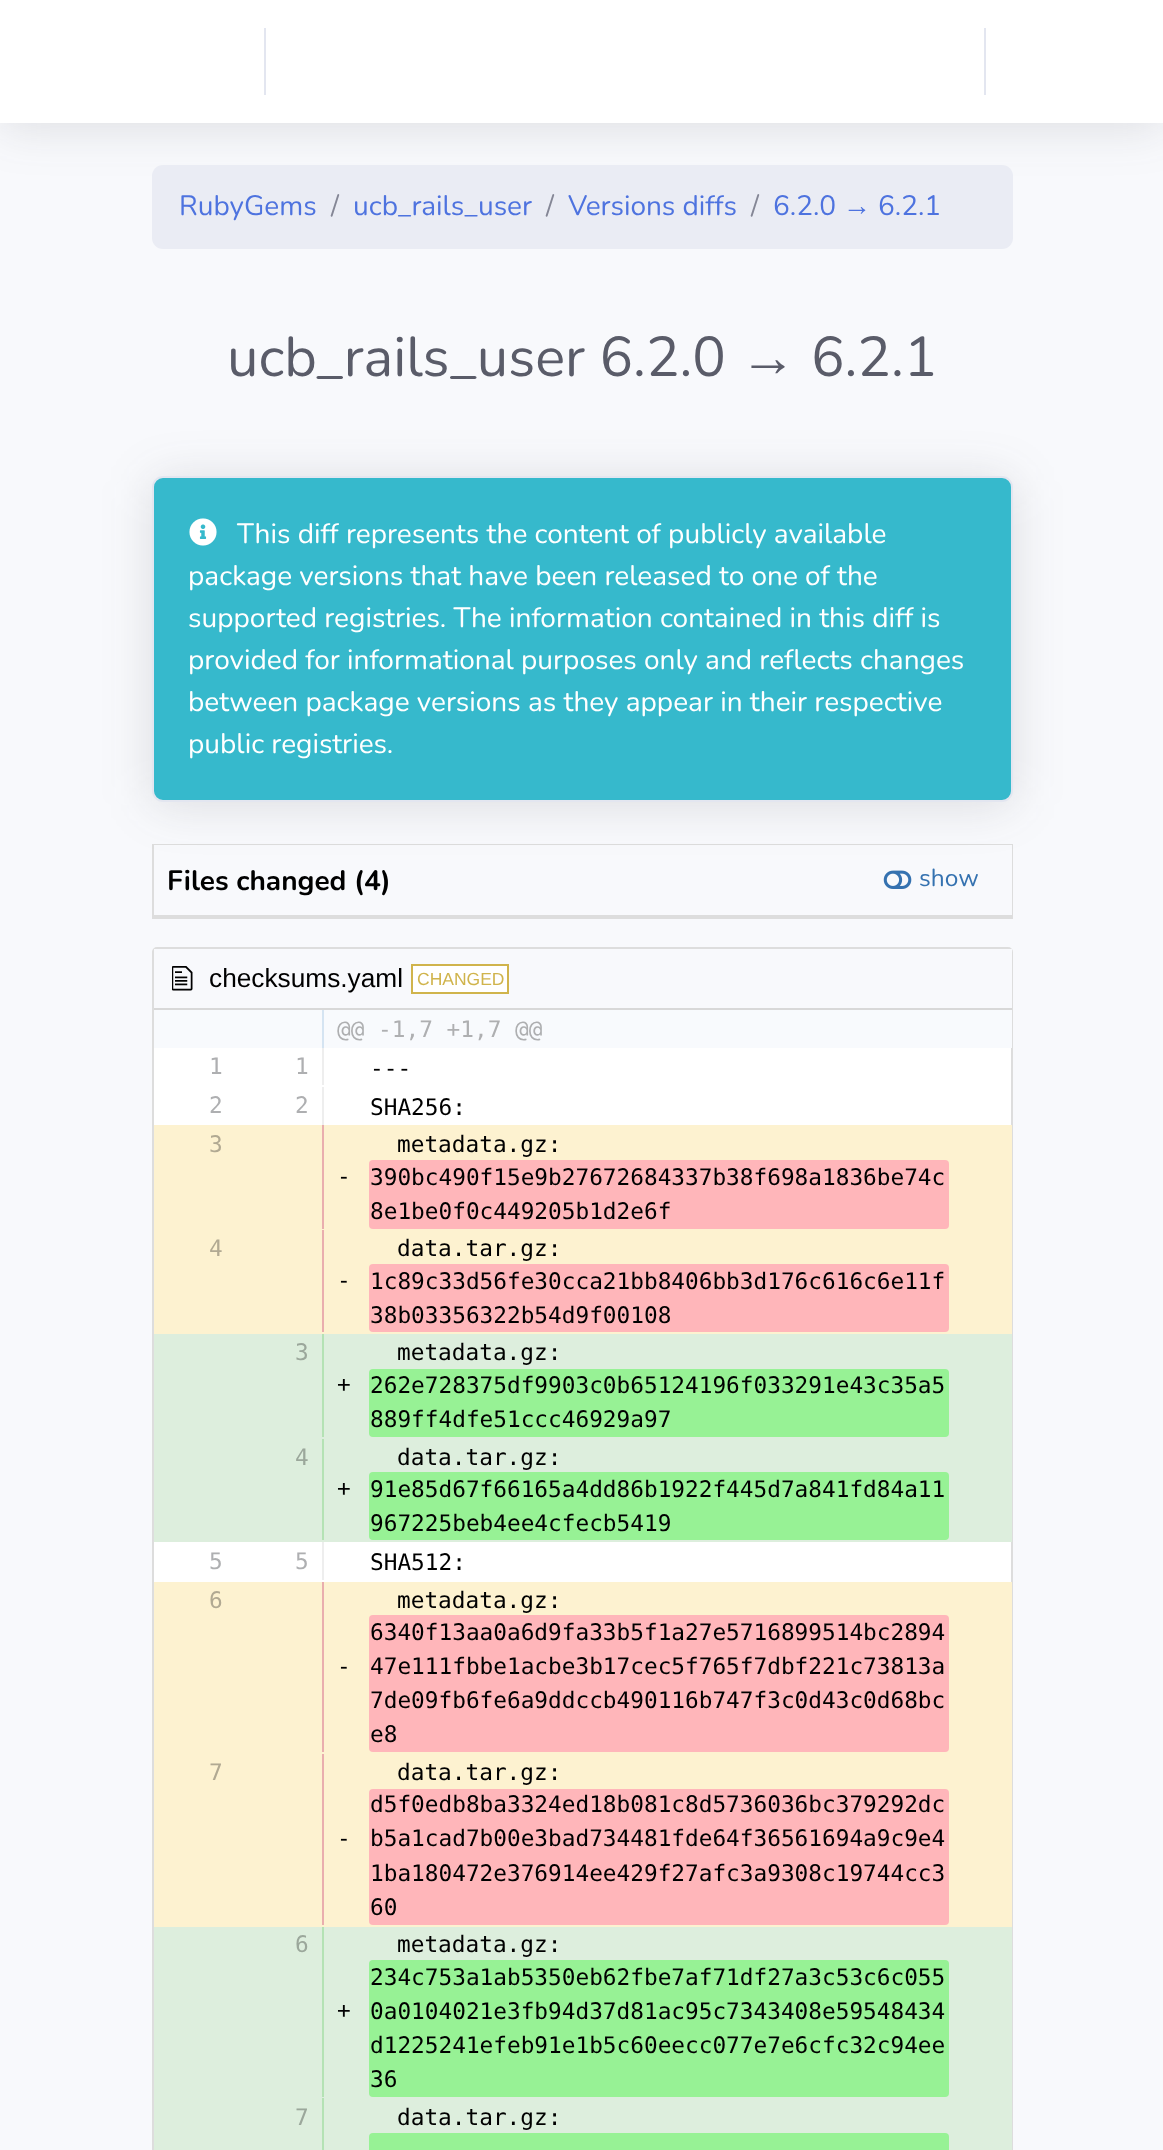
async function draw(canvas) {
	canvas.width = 1163;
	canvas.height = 2150;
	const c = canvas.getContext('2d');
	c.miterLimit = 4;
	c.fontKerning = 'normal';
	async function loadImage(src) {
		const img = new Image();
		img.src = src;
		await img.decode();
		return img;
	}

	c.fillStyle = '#f8f9fc';
	c.fillRect(0, 0, 1163, 2150);
	c.fillStyle = '#3a3b4526';
	c.filter = 'blur(24.5px)';
	c.beginPath();
	c.rect(0, 4, 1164, 122);
	c.fill();
	c.filter = 'none';
	for (const [x, y, w, h, color] of [
		[0, 0, 1163, 123, '#fff'],
		[264, 28, 2, 67, '#e3e6f0'],
		[984, 28, 2, 67, '#e3e6f0'],
	]) {
		c.fillStyle = color;
		c.fillRect(x, y, w, h);
	}
	c.fillStyle = '#eaecf4';
	c.beginPath();
	c.roundRect(152, 165, 861, 84, 11);
	c.fill();
	c.font = '28px Nunito';
	c.fillStyle = '#4e73df';
	c.fillText('RubyGems', 179, 215);
	c.fillStyle = '#858796';
	c.fillText('/', 331, 215);
	c.fillStyle = '#4e73df';
	c.fillText('ucb_rails_user', 353, 215);
	c.fillStyle = '#858796';
	c.fillText('/', 546, 215);
	c.fillStyle = '#4e73df';
	c.fillText('Versions diffs', 568, 215);
	c.fillStyle = '#858796';
	c.fillText('/', 751, 215);
	c.fillStyle = '#4e73df';
	c.fillText('6.2.0', 773, 215);
	c.font = '28px Liberation Sans';
	c.fillText('→', 843, 215);
	c.font = '28px Nunito';
	c.fillText('6.2.1', 878, 215);
	c.font = '56px Nunito';
	c.fillStyle = '#5a5c69';
	c.fillText('ucb_rails_user 6.2.0', 227, 376);
	c.font = '56px Liberation Sans';
	c.fillText('→', 740, 376);
	c.font = '56px Nunito';
	c.fillText('6.2.1', 811, 376);
	c.strokeStyle = '#ddd';
	c.lineWidth = 2;
	c.strokeRect(153, 845, 859, 73);
	c.fillStyle = '#f8f9fc';
	c.fillRect(154, 845, 858, 70);
	c.drawImage(await loadImage('img2.png'), 883, 870, 29, 19);
	c.fillStyle = '#3a3b4526';
	c.filter = 'blur(24.5px)';
	c.beginPath();
	c.roundRect(152, 480, 861, 325, 11);
	c.fill();
	c.filter = 'none';
	c.fillStyle = '#36b9cc';
	c.beginPath();
	c.roundRect(153, 477, 859, 324, 10);
	c.fill();
	c.strokeStyle = '#e3e6f0';
	c.stroke();
	c.drawImage(await loadImage('img1.png'), 189, 518, 28, 28);
	c.font = '28px Nunito';
	c.fillStyle = '#fff';
	for (const [text, x, y] of [
		['This diff represents the content of publicly available', 237, 543],
		['package versions that have been released to one of the', 188, 585],
		['supported registries. The information contained in this diff is', 188, 627],
		['provided for informational purposes only and reflects changes', 188, 669],
		['between package versions as they appear in their respective', 188, 711],
		['public registries.', 188, 753],
	]) {
		c.fillText(text, x, y);
	}
	c.fillStyle = '#ddd';
	c.fillRect(154, 915, 858, 2);
	c.font = 'bold 28px Nunito';
	c.fillStyle = '#000';
	c.fillText('Files changed (4)', 167, 890);
	c.font = '24.5px Nunito';
	c.fillStyle = '#3572b0';
	c.fillText('show', 919, 886);
	c.fillStyle = '#fff';
	c.beginPath();
	c.roundRect(153, 948, 859, 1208, 4);
	c.fill();
	c.strokeStyle = '#ddd';
	c.stroke();
	c.fillStyle = '#f8f9fc';
	c.fillRect(154, 949, 858, 59);
	c.fillStyle = '#d8d8d8';
	c.fillRect(154, 1008, 858, 2);
	c.drawImage(await loadImage('img3.png'), 172, 966, 21, 25);
	c.font = '26.25px Liberation Sans';
	c.fillStyle = '#000';
	c.fillText('checksums.yaml', 209, 987);
	c.fillStyle = '#fff';
	c.beginPath();
	c.rect(412, 965, 96, 28);
	c.fill();
	c.strokeStyle = '#d0b44c';
	c.stroke();
	c.font = '17.5px Liberation Sans';
	c.fillStyle = '#d0b44c';
	c.fillText('CHANGED', 417, 985);
	c.fillStyle = '#f8fafd';
	c.fillRect(154, 1010, 858, 38);
	c.fillStyle = '#d5e4f2';
	c.fillRect(322, 1010, 2, 38);
	c.font = '22.75px DejaVu Sans Mono';
	c.fillStyle = '#aeafb1';
	c.fillText('@@ -1,7 +1,7 @@', 337, 1037);
	c.fillStyle = '#eee';
	c.fillRect(322, 1048, 2, 37);
	c.fillStyle = '#aeafb1';
	c.fillText('1', 209, 1074);
	c.fillText('1', 295, 1074);
	c.fillStyle = '#000';
	c.fillText('---', 370, 1076);
	c.fillStyle = '#eee';
	c.fillRect(322, 1087, 2, 38);
	c.fillStyle = '#aeafb1';
	c.fillText('2', 209, 1113);
	c.fillText('2', 295, 1113);
	c.fillStyle = '#000';
	c.fillText('SHA256:', 370, 1115);
	c.fillStyle = '#fdf2d0';
	c.fillRect(154, 1125, 858, 209);
	c.fillStyle = '#b1a992';
	c.fillText('3', 209, 1152);
	c.fillStyle = '#000';
	c.fillText('-', 337, 1184);
	c.fillStyle = '#e9aeae';
	c.fillRect(322, 1125, 2, 104);
	c.fillStyle = '#000';
	c.fillText('metadata.gz:', 397, 1152);
	c.fillStyle = '#ffb6ba';
	c.beginPath();
	c.roundRect(369, 1160, 580, 69, 4);
	c.fill();
	c.fillStyle = '#000';
	c.fillText('390bc490f15e9b27672684337b38f698a1836be74c', 370, 1185);
	c.fillText('8e1be0f0c449205b1d2e6f', 370, 1219);
	c.fillStyle = '#b1a992';
	c.fillText('4', 209, 1256);
	c.fillStyle = '#000';
	c.fillText('-', 337, 1288);
	c.fillStyle = '#e9aeae';
	c.fillRect(322, 1230, 2, 102);
	c.fillStyle = '#000';
	c.fillText('data.tar.gz:', 397, 1256);
	c.fillStyle = '#ffb6ba';
	c.beginPath();
	c.roundRect(369, 1264, 580, 68, 4);
	c.fill();
	c.fillStyle = '#000';
	c.fillText('1c89c33d56fe30cca21bb8406bb3d176c616c6e11f', 370, 1289);
	c.fillText('38b03356322b54d9f00108', 370, 1323);
	c.fillStyle = '#ded';
	c.fillRect(154, 1334, 858, 208);
	c.fillStyle = '#9ba79b';
	c.fillText('3', 295, 1360);
	c.fillStyle = '#000';
	c.fillText('+', 337, 1392);
	c.fillStyle = '#b4e2b4';
	c.fillRect(322, 1334, 2, 103);
	c.fillStyle = '#000';
	c.fillText('metadata.gz:', 397, 1360);
	c.fillStyle = '#97f295';
	c.beginPath();
	c.roundRect(369, 1369, 580, 68, 4);
	c.fill();
	c.fillStyle = '#000';
	c.fillText('262e728375df9903c0b65124196f033291e43c35a5', 370, 1393);
	c.fillText('889ff4dfe51ccc46929a97', 370, 1427);
	c.fillStyle = '#9ba79b';
	c.fillText('4', 295, 1465);
	c.fillStyle = '#000';
	c.fillText('+', 337, 1496);
	c.fillStyle = '#b4e2b4';
	c.fillRect(322, 1439, 2, 101);
	c.fillStyle = '#000';
	c.fillText('data.tar.gz:', 397, 1465);
	c.fillStyle = '#97f295';
	c.beginPath();
	c.roundRect(369, 1472, 580, 68, 4);
	c.fill();
	c.fillStyle = '#000';
	c.fillText('91e85d67f66165a4dd86b1922f445d7a841fd84a11', 370, 1497);
	c.fillText('967225beb4ee4cfecb5419', 370, 1531);
	c.fillStyle = '#eee';
	c.fillRect(322, 1542, 2, 38);
	c.fillStyle = '#aeafb1';
	c.fillText('5', 209, 1569);
	c.fillText('5', 295, 1569);
	c.fillStyle = '#000';
	c.fillText('SHA512:', 370, 1570);
	c.fillStyle = '#fdf2d0';
	c.fillRect(154, 1582, 858, 345);
	c.fillStyle = '#b1a992';
	c.fillText('6', 209, 1608);
	c.fillStyle = '#000';
	c.fillText('-', 337, 1674);
	c.fillStyle = '#e9aeae';
	c.fillRect(322, 1582, 2, 170);
	c.fillStyle = '#000';
	c.fillText('metadata.gz:', 397, 1608);
	c.fillStyle = '#ffb6ba';
	c.beginPath();
	c.roundRect(369, 1615, 580, 137, 4);
	c.fill();
	c.fillStyle = '#000';
	for (const [text, x, y] of [
		['6340f13aa0a6d9fa33b5f1a27e5716899514bc2894', 370, 1640],
		['47e111fbbe1acbe3b17cec5f765f7dbf221c73813a', 370, 1674],
		['7de09fb6fe6a9ddccb490116b747f3c0d43c0d68bc', 370, 1708],
		['e8', 370, 1742],
	]) {
		c.fillText(text, x, y);
	}
	c.fillStyle = '#b1a992';
	c.fillText('7', 209, 1780);
	c.fillStyle = '#000';
	c.fillText('-', 337, 1846);
	c.fillStyle = '#e9aeae';
	c.fillRect(322, 1754, 2, 171);
	c.fillStyle = '#000';
	c.fillText('data.tar.gz:', 397, 1780);
	c.fillStyle = '#ffb6ba';
	c.beginPath();
	c.roundRect(369, 1789, 580, 136, 4);
	c.fill();
	c.fillStyle = '#000';
	for (const [text, x, y] of [
		['d5f0edb8ba3324ed18b081c8d5736036bc379292dc', 370, 1812],
		['b5a1cad7b00e3bad734481fde64f36561694a9c9e4', 370, 1846],
		['1ba180472e376914ee429f27afc3a9308c19744cc3', 370, 1881],
		['60', 370, 1915],
	]) {
		c.fillText(text, x, y);
	}
	c.fillStyle = '#ded';
	c.fillRect(154, 1927, 858, 223);
	c.fillStyle = '#9ba79b';
	c.fillText('6', 295, 1952);
	c.fillStyle = '#000';
	c.fillText('+', 337, 2018);
	c.fillStyle = '#b4e2b4';
	c.fillRect(322, 1927, 2, 170);
	c.fillStyle = '#000';
	c.fillText('metadata.gz:', 397, 1952);
	c.fillStyle = '#97f295';
	c.beginPath();
	c.roundRect(369, 1960, 580, 137, 4);
	c.fill();
	c.fillStyle = '#000';
	for (const [text, x, y] of [
		['234c753a1ab5350eb62fbe7af71df27a3c53c6c055', 370, 1985],
		['0a0104021e3fb94d37d81ac95c7343408e59548434', 370, 2019],
		['d1225241efeb91e1b5c60eecc077e7e6cfc32c94ee', 370, 2053],
		['36', 370, 2087],
	]) {
		c.fillText(text, x, y);
	}
	c.fillStyle = '#9ba79b';
	c.fillText('7', 295, 2125);
	c.fillStyle = '#b4e2b4';
	c.fillRect(322, 2098, 2, 52);
	c.fillStyle = '#000';
	c.fillText('data.tar.gz:', 397, 2125);
	c.fillStyle = '#97f295';
	c.beginPath();
	c.roundRect(369, 2133, 580, 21, 4);
	c.fill();
}

draw(document.querySelector('canvas'));
